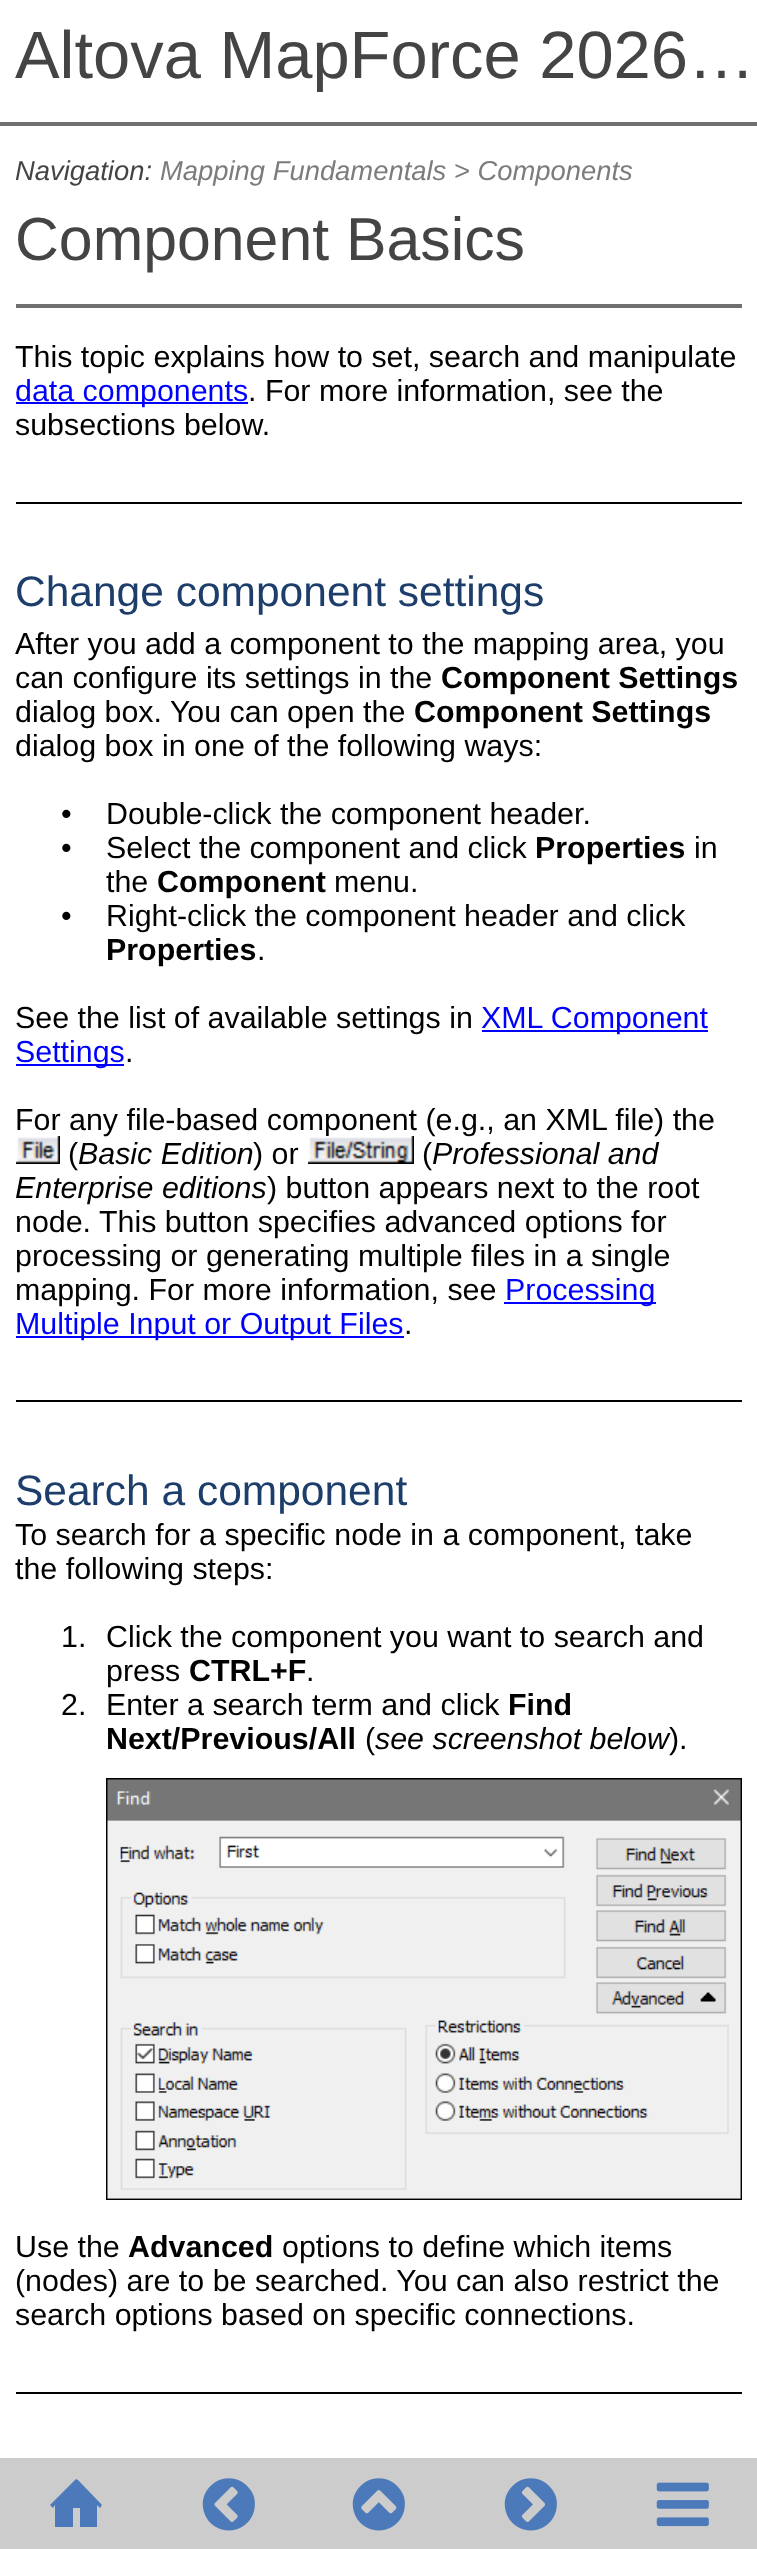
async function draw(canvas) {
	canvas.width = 757;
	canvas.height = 2549;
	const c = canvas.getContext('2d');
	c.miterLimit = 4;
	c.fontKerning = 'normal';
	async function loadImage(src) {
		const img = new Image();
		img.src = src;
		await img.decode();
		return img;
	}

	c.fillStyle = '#fff';
	c.fillRect(0, 0, 757, 2549);
	c.font = '66.9px Liberation Sans';
	c.fillStyle = '#444';
	c.fillText('Altova MapForce 2026…', 15, 78);
	c.fillStyle = '#707070';
	c.fillRect(0, 122, 757, 4);
	c.font = 'italic 27.4px Liberation Sans';
	c.fillStyle = '#444';
	c.fillText('Navigation:', 15, 180);
	c.fillStyle = '#7c7c7c';
	c.fillText('Mapping Fundamentals > Components', 160, 180);
	c.font = '60.75px Liberation Sans';
	c.fillStyle = '#444';
	c.fillText('Component Basics', 15, 260);
	c.fillStyle = '#707070';
	c.fillRect(16, 304, 726, 4);
	c.font = '30.4px Liberation Sans';
	c.fillStyle = '#000';
	c.fillText('This topic explains how to set, search and manipulate', 15, 367);
	c.fillStyle = '#00f';
	c.fillRect(16, 402, 232, 2);
	c.fillText('data components', 15, 401);
	c.fillStyle = '#000';
	c.fillText('. For more information, see the', 248, 401);
	c.fillText('subsections below.', 15, 435);
	c.fillRect(16, 502, 726, 2);
	c.font = '42.5px Liberation Sans';
	c.fillStyle = '#1d3e6b';
	c.fillText('Change component settings', 15, 606);
	c.font = '30.4px Liberation Sans';
	c.fillStyle = '#000';
	c.fillText('After you add a component to the mapping area, you', 15, 654);
	c.fillText('can configure its settings in the', 15, 688);
	c.font = 'bold 30.4px Liberation Sans';
	c.fillText('Component Settings', 441, 688);
	c.font = '30.4px Liberation Sans';
	c.fillText('dialog box. You can open the', 15, 722);
	c.font = 'bold 30.4px Liberation Sans';
	c.fillText('Component Settings', 414, 722);
	c.font = '30.4px Liberation Sans';
	for (const [text, x, y] of [
		['dialog box in one of the following ways:', 15, 756],
		['•', 61, 824],
		['Double-click the component header.', 106, 824],
		['•', 61, 858],
		['Select the component and click', 106, 858],
	]) {
		c.fillText(text, x, y);
	}
	c.font = 'bold 30.4px Liberation Sans';
	c.fillText('Properties', 535, 858);
	c.font = '30.4px Liberation Sans';
	c.fillText('in', 694, 858);
	c.fillText('the', 106, 892);
	c.font = 'bold 30.4px Liberation Sans';
	c.fillText('Component', 157, 892);
	c.font = '30.4px Liberation Sans';
	for (const [text, x, y] of [
		['menu.', 334, 892],
		['•', 61, 926],
		['Right-click the component header and click', 106, 926],
	]) {
		c.fillText(text, x, y);
	}
	c.font = 'bold 30.4px Liberation Sans';
	c.fillText('Properties', 106, 960);
	c.font = '30.4px Liberation Sans';
	c.fillText('.', 257, 960);
	c.fillText('See the list of available settings in', 15, 1028);
	c.fillStyle = '#00f';
	c.fillRect(482, 1030, 226, 2);
	c.fillText('XML Component', 481, 1028);
	c.fillRect(16, 1064, 108, 2);
	c.fillText('Settings', 15, 1062);
	c.fillStyle = '#000';
	c.fillText('.', 125, 1062);
	c.fillText('For any file-based component (e.g., an XML file) the', 15, 1130);
	c.drawImage(await loadImage('img1.png'), 16, 1136, 44, 28);
	c.fillText('(', 68, 1164);
	c.font = 'italic 30.4px Liberation Sans';
	c.fillText('Basic Edition', 78, 1164);
	c.font = '30.4px Liberation Sans';
	c.fillText(') or', 253, 1164);
	c.drawImage(await loadImage('img2.png'), 308, 1136, 106, 28);
	c.fillText('(', 422, 1164);
	c.font = 'italic 30.4px Liberation Sans';
	c.fillText('Professional and', 432, 1164);
	c.fillText('Enterprise editions', 15, 1198);
	c.font = '30.4px Liberation Sans';
	for (const [text, x, y] of [
		[') button appears next to the root', 267, 1198],
		['node. This button specifies advanced options for', 15, 1232],
		['processing or generating multiple files in a single', 15, 1266],
		['mapping. For more information, see', 15, 1300],
	]) {
		c.fillText(text, x, y);
	}
	c.fillStyle = '#00f';
	c.fillRect(504, 1302, 152, 2);
	c.fillText('Processing', 505, 1300);
	c.fillRect(16, 1336, 388, 2);
	c.fillText('Multiple Input or Output Files', 15, 1334);
	c.fillStyle = '#000';
	c.fillText('.', 404, 1334);
	c.fillRect(16, 1400, 726, 2);
	c.font = '42.5px Liberation Sans';
	c.fillStyle = '#1d3e6b';
	c.fillText('Search a component', 15, 1505);
	c.font = '30.4px Liberation Sans';
	c.fillStyle = '#000';
	for (const [text, x, y] of [
		['To search for a specific node in a component, take', 15, 1545],
		['the following steps:', 15, 1579],
		['1.', 61, 1647],
		['Click the component you want to search and', 106, 1647],
		['press', 106, 1681],
	]) {
		c.fillText(text, x, y);
	}
	c.font = 'bold 30.4px Liberation Sans';
	c.fillText('CTRL+F', 189, 1681);
	c.font = '30.4px Liberation Sans';
	for (const [text, x, y] of [
		['.', 306, 1681],
		['2.', 61, 1715],
		['Enter a search term and click', 106, 1715],
	]) {
		c.fillText(text, x, y);
	}
	c.font = 'bold 30.4px Liberation Sans';
	c.fillText('Find', 508, 1715);
	c.fillText('Next/Previous/All', 106, 1749);
	c.font = '30.4px Liberation Sans';
	c.fillText('(', 365, 1749);
	c.font = 'italic 30.4px Liberation Sans';
	c.fillText('see screenshot below', 375, 1749);
	c.font = '30.4px Liberation Sans';
	c.fillText(').', 669, 1749);
	c.drawImage(await loadImage('img3.png'), 106, 1778, 636, 422);
	c.fillText('Use the', 15, 2257);
	c.font = 'bold 30.4px Liberation Sans';
	c.fillText('Advanced', 128, 2257);
	c.font = '30.4px Liberation Sans';
	for (const [text, x, y] of [
		['options to define which items', 282, 2257],
		['(nodes) are to be searched. You can also restrict the', 15, 2291],
		['search options based on specific connections.', 15, 2325],
	]) {
		c.fillText(text, x, y);
	}
	c.fillRect(16, 2392, 726, 2);
	c.fillStyle = '#ccc';
	c.fillRect(0, 2458, 757, 91);
	c.fillStyle = '#4c79b9';
	c.beginPath();
	c.moveTo(76, 2479);
	c.lineTo(50, 2505);
	c.lineTo(53, 2508);
	c.lineTo(55, 2505);
	c.lineTo(55, 2527);
	c.lineTo(73, 2527);
	c.lineTo(73, 2508);
	c.lineTo(80, 2508);
	c.lineTo(80, 2527);
	c.lineTo(97, 2527);
	c.lineTo(97, 2505);
	c.lineTo(100, 2508);
	c.lineTo(102, 2505);
	c.lineTo(78, 2480);
	c.closePath();
	c.fill();
	c.drawImage(await loadImage('img4.png'), 202, 2478, 53, 53);
	c.drawImage(await loadImage('img5.png'), 352, 2478, 53, 53);
	c.drawImage(await loadImage('img6.png'), 504, 2478, 53, 53);
	c.drawImage(await loadImage('img7.png'), 656, 2482, 53, 45);
}

draw(document.querySelector('canvas'));
